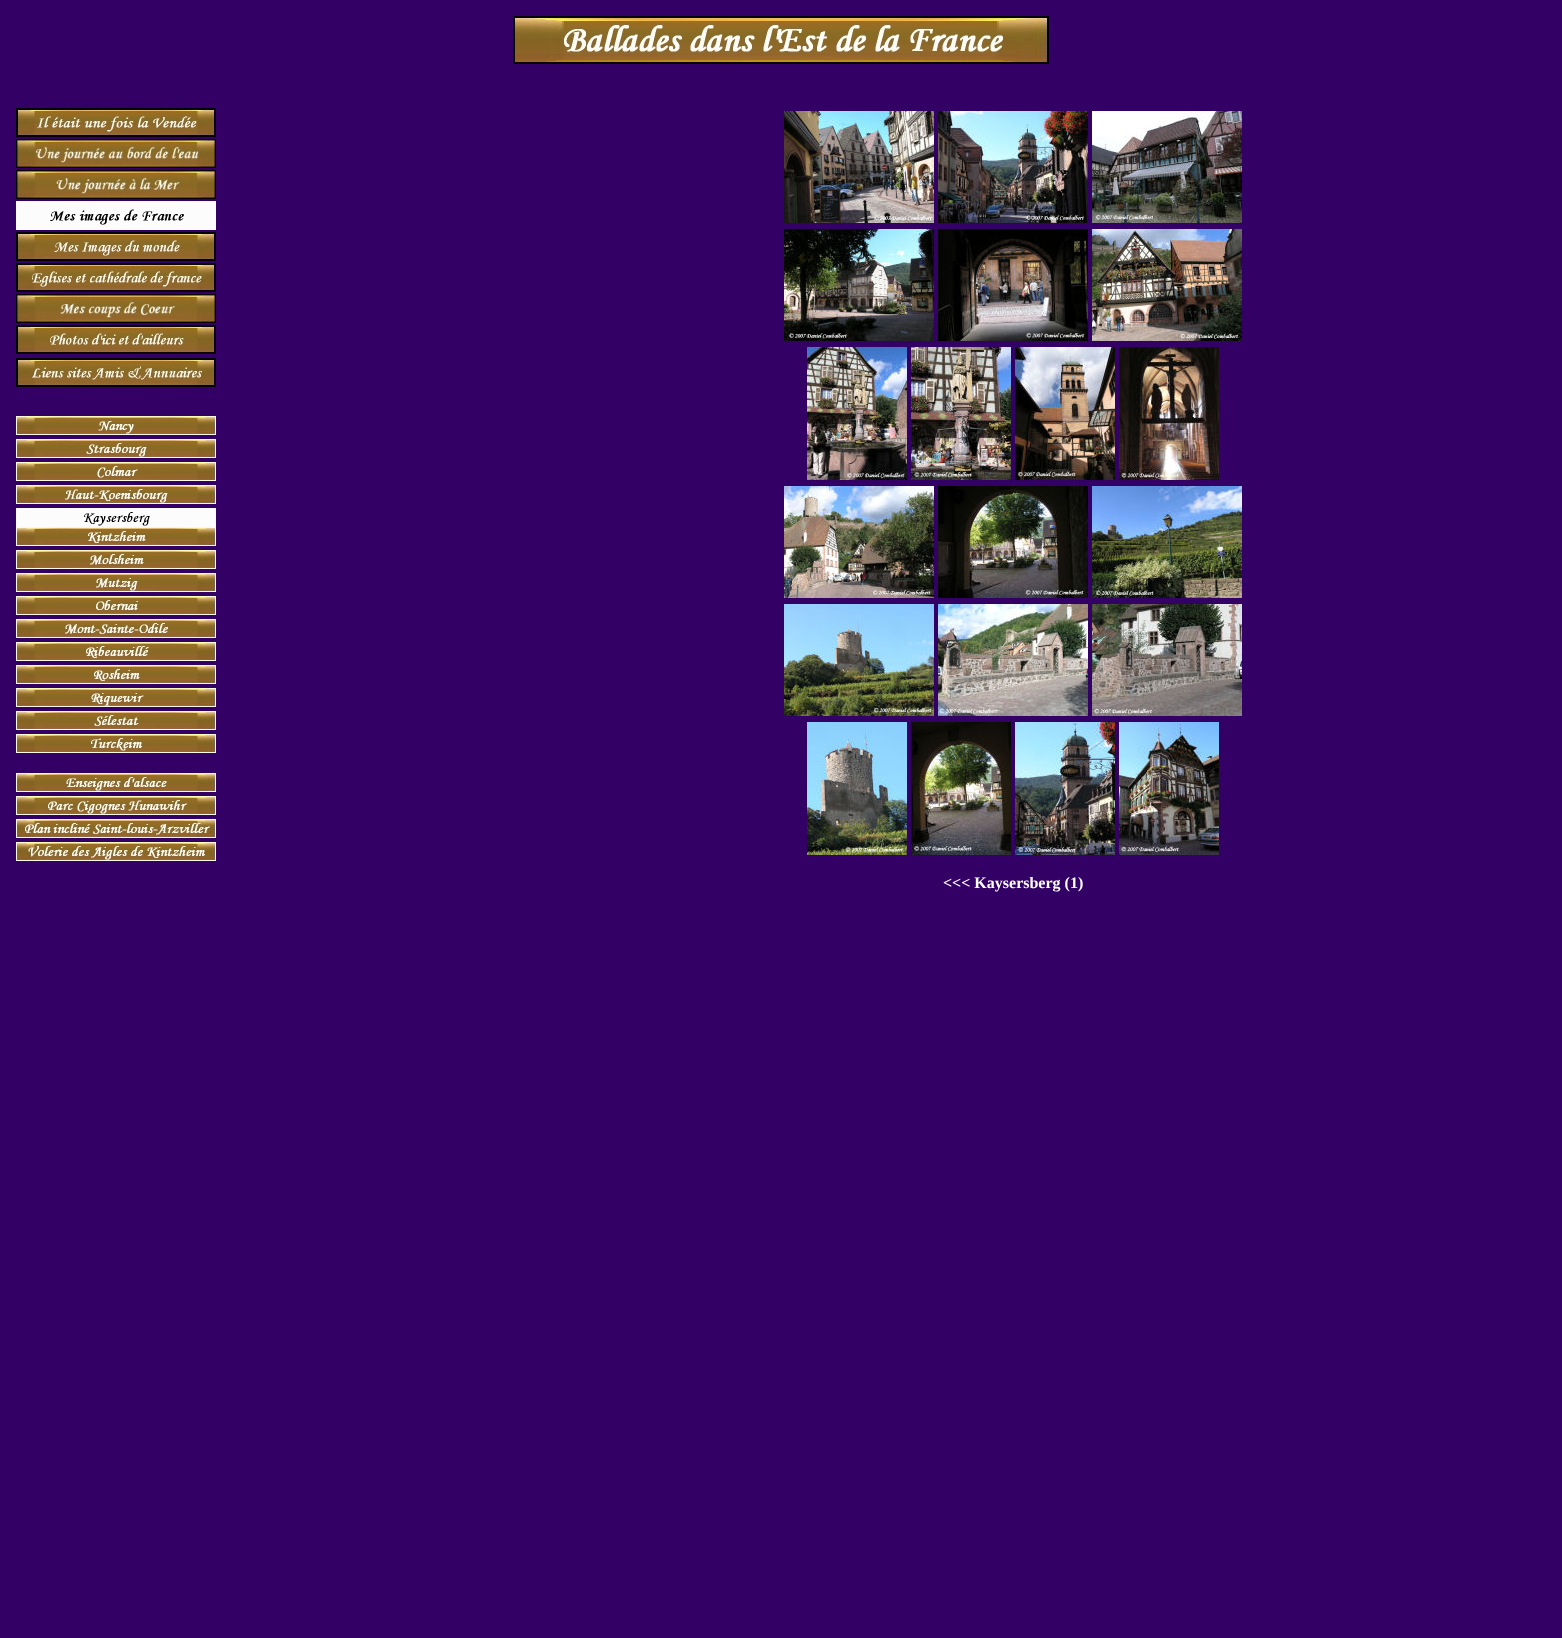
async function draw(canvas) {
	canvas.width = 1562;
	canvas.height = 1638;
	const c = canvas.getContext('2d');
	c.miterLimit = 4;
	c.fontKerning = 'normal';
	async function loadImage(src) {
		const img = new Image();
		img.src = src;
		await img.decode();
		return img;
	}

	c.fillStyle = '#306';
	c.fillRect(0, 0, 1562, 1638);
	c.drawImage(await loadImage('img1.png'), 513, 16, 536, 48);
	c.drawImage(await loadImage('img2.png'), 16, 108, 200, 29);
	c.drawImage(await loadImage('img3.png'), 16, 139, 200, 29);
	c.drawImage(await loadImage('img4.png'), 16, 170, 200, 29);
	c.drawImage(await loadImage('img5.png'), 16, 201, 200, 29);
	c.drawImage(await loadImage('img6.png'), 16, 232, 200, 29);
	c.drawImage(await loadImage('img7.png'), 16, 263, 200, 29);
	c.drawImage(await loadImage('img8.png'), 16, 294, 200, 29);
	c.drawImage(await loadImage('img9.png'), 16, 325, 200, 29);
	c.drawImage(await loadImage('img10.png'), 16, 358, 200, 29);
	c.drawImage(await loadImage('img11.png'), 16, 416, 200, 19);
	c.drawImage(await loadImage('img12.png'), 16, 439, 200, 19);
	c.drawImage(await loadImage('img13.png'), 16, 462, 200, 19);
	c.drawImage(await loadImage('img14.png'), 16, 485, 200, 19);
	c.drawImage(await loadImage('img15.png'), 16, 508, 200, 19);
	c.drawImage(await loadImage('img16.png'), 16, 527, 200, 19);
	c.drawImage(await loadImage('img17.png'), 16, 550, 200, 19);
	c.drawImage(await loadImage('img18.png'), 16, 573, 200, 19);
	c.drawImage(await loadImage('img19.png'), 16, 596, 200, 19);
	c.drawImage(await loadImage('img20.png'), 16, 619, 200, 19);
	c.drawImage(await loadImage('img21.png'), 16, 642, 200, 19);
	c.drawImage(await loadImage('img22.png'), 16, 665, 200, 19);
	c.drawImage(await loadImage('img23.png'), 16, 688, 200, 19);
	c.drawImage(await loadImage('img24.png'), 16, 711, 200, 19);
	c.drawImage(await loadImage('img25.png'), 16, 734, 200, 19);
	c.drawImage(await loadImage('img26.png'), 16, 773, 200, 19);
	c.drawImage(await loadImage('img27.png'), 16, 796, 200, 19);
	c.drawImage(await loadImage('img28.png'), 16, 819, 200, 19);
	c.drawImage(await loadImage('img29.png'), 16, 842, 200, 19);
	c.drawImage(await loadImage('img30.png'), 784, 111, 150, 112);
	c.drawImage(await loadImage('img31.png'), 938, 111, 150, 112);
	c.drawImage(await loadImage('img32.png'), 1092, 111, 150, 112);
	c.drawImage(await loadImage('img33.png'), 784, 229, 150, 112);
	c.drawImage(await loadImage('img34.png'), 938, 229, 150, 112);
	c.drawImage(await loadImage('img35.png'), 1092, 229, 150, 112);
	c.drawImage(await loadImage('img36.png'), 807, 347, 100, 133);
	c.drawImage(await loadImage('img37.png'), 911, 347, 100, 133);
	c.drawImage(await loadImage('img38.png'), 1015, 347, 100, 133);
	c.drawImage(await loadImage('img39.png'), 1119, 347, 100, 133);
	c.drawImage(await loadImage('img40.png'), 784, 486, 150, 112);
	c.drawImage(await loadImage('img41.png'), 938, 486, 150, 112);
	c.drawImage(await loadImage('img42.png'), 1092, 486, 150, 112);
	c.drawImage(await loadImage('img43.png'), 784, 604, 150, 112);
	c.drawImage(await loadImage('img44.png'), 938, 604, 150, 112);
	c.drawImage(await loadImage('img45.png'), 1092, 604, 150, 112);
	c.drawImage(await loadImage('img46.png'), 807, 722, 100, 133);
	c.drawImage(await loadImage('img47.png'), 911, 722, 100, 133);
	c.drawImage(await loadImage('img48.png'), 1015, 722, 100, 133);
	c.drawImage(await loadImage('img49.png'), 1119, 722, 100, 133);
	c.fillStyle = '#00e';
	c.fillRect(943, 889, 140, 1);
	c.font = 'bold 16px Liberation Serif';
	c.fillStyle = '#fff';
	c.fillText('<<< Kaysersberg (1)', 943, 888);
}

draw(document.querySelector('canvas'));
